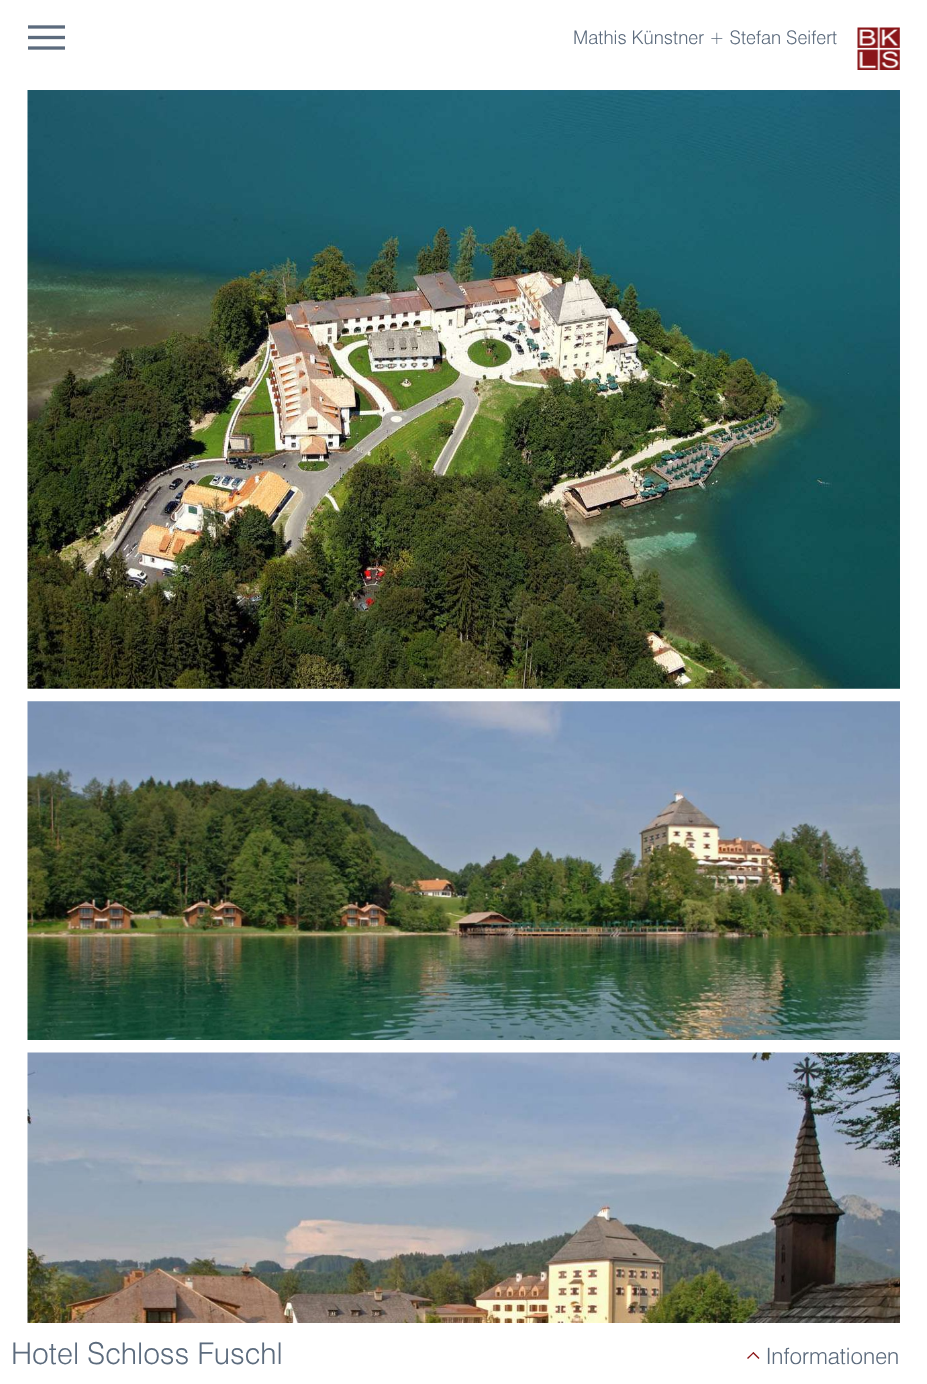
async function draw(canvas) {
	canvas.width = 927;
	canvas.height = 1384;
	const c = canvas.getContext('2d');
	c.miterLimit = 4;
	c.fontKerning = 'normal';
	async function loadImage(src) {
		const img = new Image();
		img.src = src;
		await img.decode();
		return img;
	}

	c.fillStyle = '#fff';
	c.fillRect(0, 0, 927, 1384);
	c.drawImage(await loadImage('img1.png'), 28, 25, 37, 25);
	c.font = '300 18.75px "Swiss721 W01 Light"';
	c.fillStyle = '#5c6b7d';
	c.fillText('Mathis Künstner + Stefan Seifert', 573, 44);
	c.drawImage(await loadImage('img2.png'), 857, 27, 43, 43);
	c.drawImage(await loadImage('img3.png'), 27, 90, 873, 599);
	c.drawImage(await loadImage('img4.png'), 27, 701, 873, 339);
	c.drawImage(await loadImage('img5.png'), 27, 1052, 873, 271);
	c.font = '300 30px "Swiss721 W01 Light"';
	c.fillText('Hotel Schloss Fuschl', 11, 1364);
	c.fillStyle = '#8a1619';
	c.beginPath();
	c.moveTo(748, 1359);
	c.lineTo(747, 1358);
	c.lineTo(753.5, 1352);
	c.lineTo(754, 1353);
	c.closePath();
	c.fill();
	c.beginPath();
	c.moveTo(758.5, 1359);
	c.lineTo(752.5, 1353);
	c.lineTo(753.5, 1352);
	c.lineTo(759.5, 1358);
	c.closePath();
	c.fill();
	c.font = '300 22.5px "Swiss721 W01 Light"';
	c.fillStyle = '#5c6b7d';
	c.fillText('Informationen', 766, 1364);
}

draw(document.querySelector('canvas'));
